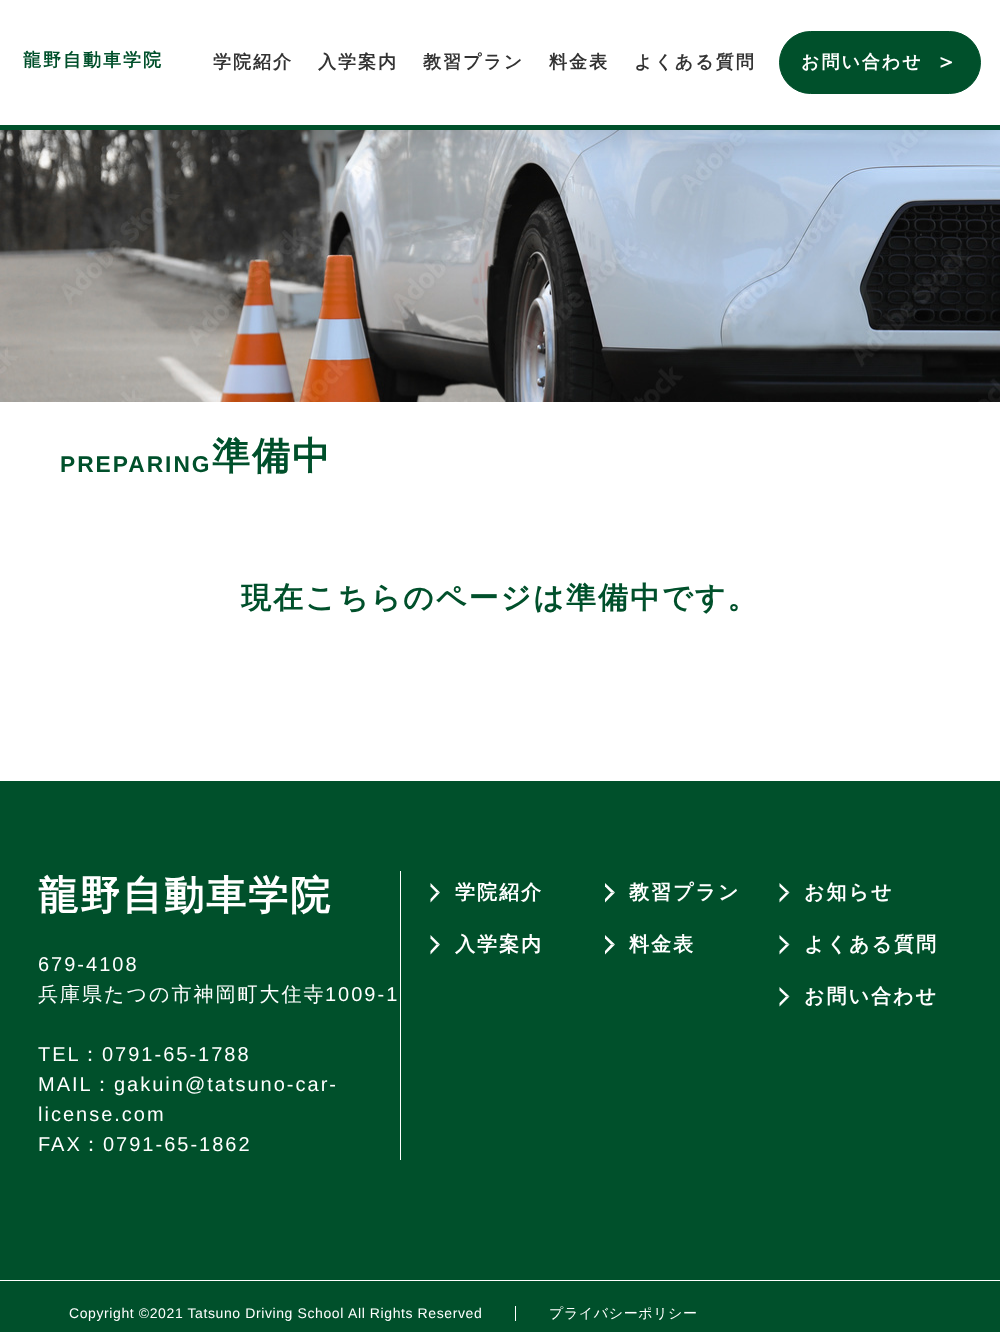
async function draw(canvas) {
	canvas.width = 1000;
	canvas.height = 1332;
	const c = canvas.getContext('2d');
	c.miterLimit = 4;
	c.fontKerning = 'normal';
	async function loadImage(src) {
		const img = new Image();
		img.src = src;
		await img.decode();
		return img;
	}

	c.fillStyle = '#fff';
	c.fillRect(0, 0, 1000, 1332);
	c.drawImage(await loadImage('img1.png'), 0, 130, 1000, 272);
	c.fillStyle = '#00000033';
	c.filter = 'blur(19px)';
	c.beginPath();
	c.rect(6, 6, 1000, 130);
	c.fill();
	c.filter = 'none';
	c.fillStyle = '#fff';
	c.fillRect(0, 0, 1000, 125);
	c.fillStyle = '#00502b';
	c.fillRect(0, 125, 1000, 5);
	c.letterSpacing = '2px';
	c.font = 'bold 18px WenQuanYi Zen Hei';
	c.fillText('龍野自動車学院', 23, 66);
	c.fillStyle = '#333';
	for (const [text, x, y] of [
		['学院紹介', 213, 68],
		['入学案内', 318, 68],
		['教習プラン', 423, 68],
		['料金表', 549, 68],
		['よくある質問', 634, 68],
	]) {
		c.fillText(text, x, y);
	}
	c.fillStyle = '#00502b';
	c.beginPath();
	c.roundRect(779.5, 31.5, 201, 62, 31);
	c.fill();
	c.strokeStyle = '#00502b';
	c.stroke();
	c.fillStyle = '#fff';
	c.fillText('お問い合わせ', 801, 68);
	c.font = 'bold 22px WenQuanYi Zen Hei';
	c.fillText('＞', 935, 69);
	c.font = 'bold 22.75px Liberation Sans';
	c.fillStyle = '#00502b';
	c.fillText('PREPARING', 60, 472);
	c.font = 'bold 38px WenQuanYi Zen Hei';
	c.fillText('準備中', 212, 469);
	c.font = 'bold 30px WenQuanYi Zen Hei';
	c.fillText('現在こちらのページは準備中です。', 241, 608);
	c.fillRect(0, 781, 1000, 551);
	c.fillStyle = '#fff';
	c.fillRect(400, 871, 1, 289);
	c.font = 'bold 40px WenQuanYi Zen Hei';
	c.fillText('龍野自動車学院', 38, 909);
	c.font = '20px Liberation Sans';
	c.fillText('679-4108', 38, 971);
	c.font = '500 20px WenQuanYi Zen Hei';
	c.fillText('兵庫県たつの市神岡町大住寺', 38, 1001);
	c.font = '20px Liberation Sans';
	c.fillText('1009-1', 325, 1001);
	c.fillText('TEL', 38, 1061);
	c.font = '500 20px WenQuanYi Zen Hei';
	c.fillText('：', 80, 1061);
	c.font = '20px Liberation Sans';
	c.fillText('0791-65-1788', 102, 1061);
	c.fillText('MAIL', 38, 1091);
	c.font = '500 20px WenQuanYi Zen Hei';
	c.fillText('：', 92, 1091);
	c.font = '20px Liberation Sans';
	for (const [text, x, y] of [
		['gakuin@tatsuno-car-', 114, 1091],
		['license.com', 38, 1121],
		['FAX', 38, 1151],
	]) {
		c.fillText(text, x, y);
	}
	c.font = '500 20px WenQuanYi Zen Hei';
	c.fillText('：', 81, 1151);
	c.font = '20px Liberation Sans';
	c.fillText('0791-65-1862', 103, 1151);
	c.beginPath();
	c.moveTo(430.5, 883);
	c.lineTo(440, 892.5);
	c.lineTo(436.5, 892.5);
	c.lineTo(430.5, 886.5);
	c.closePath();
	c.fill();
	c.beginPath();
	c.moveTo(440, 892.5);
	c.lineTo(430.5, 902.5);
	c.lineTo(430.5, 899);
	c.lineTo(436.5, 892.5);
	c.closePath();
	c.fill();
	c.font = 'bold 20px WenQuanYi Zen Hei';
	c.fillText('学院紹介', 455, 899);
	c.beginPath();
	c.moveTo(430.5, 935);
	c.lineTo(440, 944.5);
	c.lineTo(436.5, 944.5);
	c.lineTo(430.5, 938.5);
	c.closePath();
	c.fill();
	c.beginPath();
	c.moveTo(440, 944.5);
	c.lineTo(430.5, 954.5);
	c.lineTo(430.5, 951);
	c.lineTo(436.5, 944.5);
	c.closePath();
	c.fill();
	c.fillText('入学案内', 455, 951);
	c.beginPath();
	c.moveTo(605, 883);
	c.lineTo(615, 892.5);
	c.lineTo(611, 892.5);
	c.lineTo(605, 886.5);
	c.closePath();
	c.fill();
	c.beginPath();
	c.moveTo(615, 892.5);
	c.lineTo(605, 902.5);
	c.lineTo(605, 899);
	c.lineTo(611, 892.5);
	c.closePath();
	c.fill();
	c.fillText('教習プラン', 629, 899);
	c.beginPath();
	c.moveTo(605, 935);
	c.lineTo(615, 944.5);
	c.lineTo(611, 944.5);
	c.lineTo(605, 938.5);
	c.closePath();
	c.fill();
	c.beginPath();
	c.moveTo(615, 944.5);
	c.lineTo(605, 954.5);
	c.lineTo(605, 951);
	c.lineTo(611, 944.5);
	c.closePath();
	c.fill();
	c.fillText('料金表', 629, 951);
	c.beginPath();
	c.moveTo(779.5, 883);
	c.lineTo(789.5, 892.5);
	c.lineTo(786, 892.5);
	c.lineTo(779.5, 886.5);
	c.closePath();
	c.fill();
	c.beginPath();
	c.moveTo(789.5, 892.5);
	c.lineTo(779.5, 902.5);
	c.lineTo(779.5, 899);
	c.lineTo(786, 892.5);
	c.closePath();
	c.fill();
	c.fillText('お知らせ', 804, 899);
	c.beginPath();
	c.moveTo(779.5, 935);
	c.lineTo(789.5, 944.5);
	c.lineTo(786, 944.5);
	c.lineTo(779.5, 938.5);
	c.closePath();
	c.fill();
	c.beginPath();
	c.moveTo(789.5, 944.5);
	c.lineTo(779.5, 954.5);
	c.lineTo(779.5, 951);
	c.lineTo(786, 944.5);
	c.closePath();
	c.fill();
	c.fillText('よくある質問', 804, 951);
	c.beginPath();
	c.moveTo(779.5, 987);
	c.lineTo(789.5, 996.5);
	c.lineTo(786, 996.5);
	c.lineTo(779.5, 990.5);
	c.closePath();
	c.fill();
	c.beginPath();
	c.moveTo(789.5, 996.5);
	c.lineTo(779.5, 1006.5);
	c.lineTo(779.5, 1003);
	c.lineTo(786, 996.5);
	c.closePath();
	c.fill();
	c.fillText('お問い合わせ', 804, 1003);
	c.fillRect(0, 1280, 1000, 1);
	c.letterSpacing = '0.6px';
	c.font = '14px Liberation Sans';
	c.fillText('Copyright ©2021 Tatsuno Driving School', 69, 1318);
	c.fillText('All Rights Reserved', 348, 1318);
	c.fillRect(515, 1306, 1, 15);
	c.font = '500 14px WenQuanYi Zen Hei';
	c.fillText('プライバシーポリシー', 549, 1318);
}

draw(document.querySelector('canvas'));
